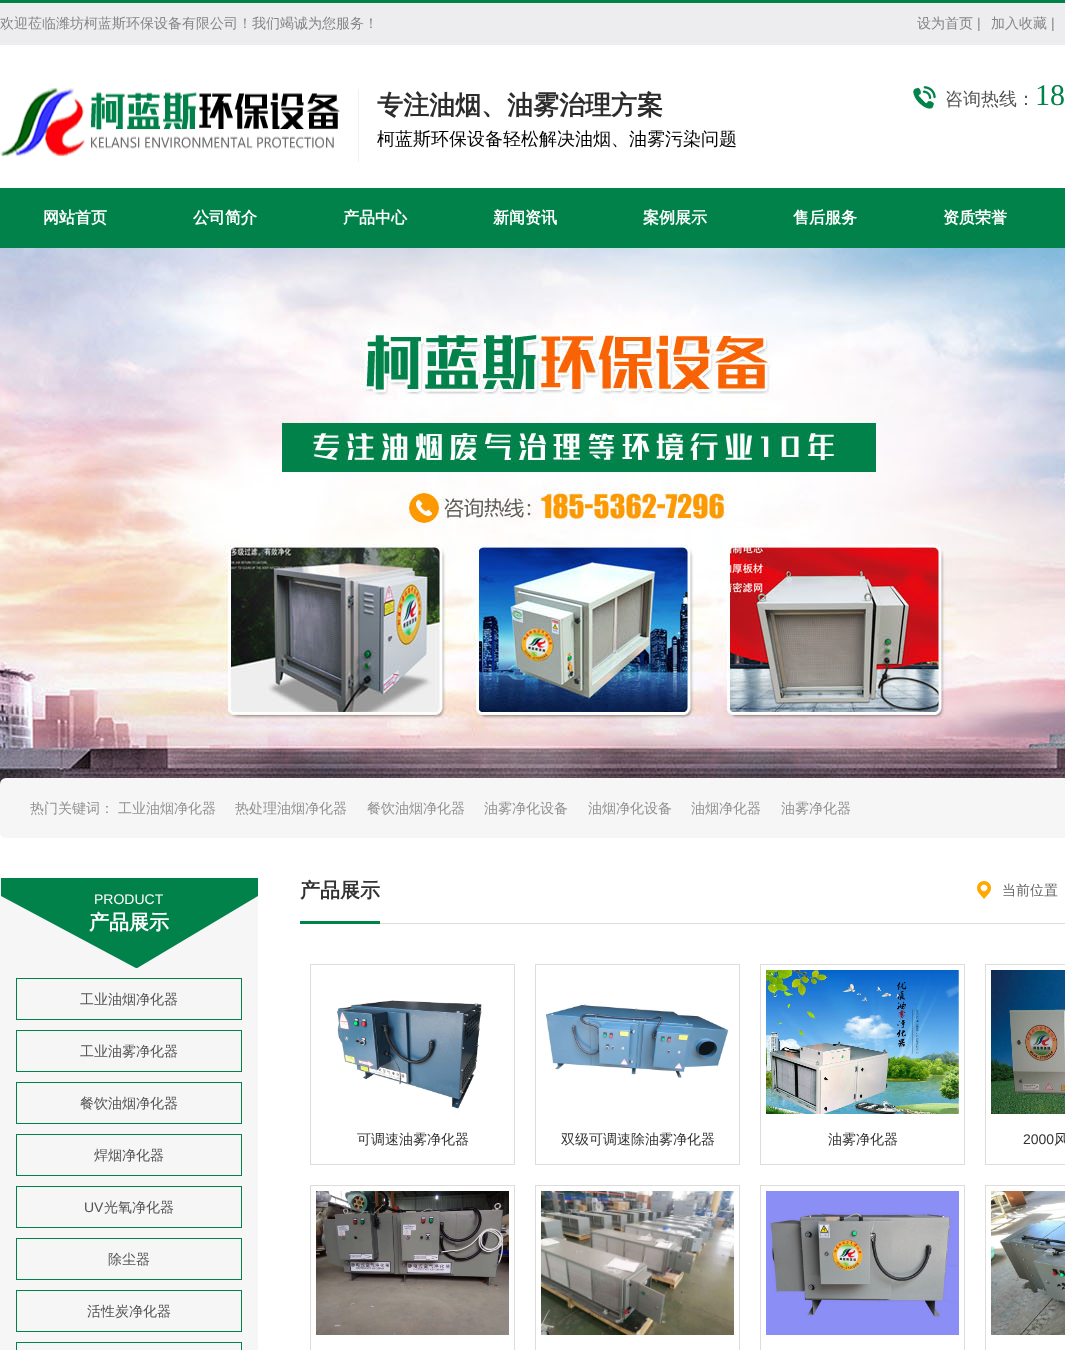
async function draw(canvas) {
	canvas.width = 1065;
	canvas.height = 1350;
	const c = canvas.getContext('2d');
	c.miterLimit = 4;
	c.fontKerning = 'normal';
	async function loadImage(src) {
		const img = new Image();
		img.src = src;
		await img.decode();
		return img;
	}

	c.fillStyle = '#fff';
	c.fillRect(0, 0, 1065, 1350);
	c.drawImage(await loadImage('img1.png'), 0, 0, 1065, 45);
	c.font = '500 14px WenQuanYi Zen Hei';
	c.fillStyle = '#858585';
	c.fillText('欢迎莅临潍坊柯蓝斯环保设备有限公司！我们竭诚为您服务！', 0, 28);
	c.fillText('设为首页', 917, 28);
	c.font = '14px Liberation Sans';
	c.fillText('|', 977, 28);
	c.font = '500 14px WenQuanYi Zen Hei';
	c.fillText('加入收藏', 991, 28);
	c.font = '14px Liberation Sans';
	c.fillText('|', 1051, 28);
	c.drawImage(await loadImage('img2.png'), 0, 88, 340, 69);
	c.fillStyle = '#ebf2f8';
	c.fillRect(358, 89, 1, 73);
	c.font = 'bold 26px WenQuanYi Zen Hei';
	c.fillStyle = '#2c2c2c';
	c.fillText('专注油烟、油雾治理方案', 377, 114);
	c.font = '500 18px WenQuanYi Zen Hei';
	c.fillStyle = '#020202';
	c.fillText('柯蓝斯环保设备轻松解决油烟、油雾污染问题', 377, 145);
	c.drawImage(await loadImage('img3.png'), 913, 86, 23, 23);
	c.fillStyle = '#535353';
	c.fillText('咨询热线：', 945, 105);
	c.font = '30px Liberation Serif';
	c.fillStyle = '#00824a';
	c.fillText('18', 1035, 105);
	c.fillRect(0, 188, 1065, 60);
	c.font = 'bold 16px WenQuanYi Zen Hei';
	c.fillStyle = '#fff';
	for (const [text, x, y] of [
		['网站首页', 43, 223],
		['公司简介', 193, 223],
		['产品中心', 343, 223],
		['新闻资讯', 493, 223],
		['案例展示', 643, 223],
		['售后服务', 793, 223],
		['资质荣誉', 943, 223],
	]) {
		c.fillText(text, x, y);
	}
	c.drawImage(await loadImage('img4.png'), 0, 248, 1065, 536);
	c.fillStyle = '#f6f6f6';
	c.beginPath();
	c.roundRect(0, 778, 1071, 60, 6);
	c.fill();
	c.font = '500 14px WenQuanYi Zen Hei';
	c.fillStyle = '#929292';
	for (const [text, x, y] of [
		['热门关键词：', 30, 813],
		['工业油烟净化器', 118, 813],
		['热处理油烟净化器', 235, 813],
		['餐饮油烟净化器', 367, 813],
		['油雾净化设备', 484, 813],
		['油烟净化设备', 588, 813],
		['油烟净化器', 691, 813],
		['油雾净化器', 781, 813],
	]) {
		c.fillText(text, x, y);
	}
	c.fillStyle = '#f6f6f6';
	c.fillRect(0, 878, 258, 472);
	c.drawImage(await loadImage('img5.png'), 1, 878, 257, 90);
	c.font = '14px Liberation Sans';
	c.fillStyle = '#fff';
	c.fillText('PRODUCT', 94, 904);
	c.font = 'bold 20px WenQuanYi Zen Hei';
	c.fillText('产品展示', 89, 929);
	c.strokeStyle = '#00824a';
	c.strokeRect(16.5, 978.5, 225, 41);
	c.font = '500 14px WenQuanYi Zen Hei';
	c.fillStyle = '#535353';
	c.fillText('工业油烟净化器', 80, 1004);
	c.strokeRect(16.5, 1030.5, 225, 41);
	c.fillText('工业油雾净化器', 80, 1056);
	c.strokeRect(16.5, 1082.5, 225, 41);
	c.fillText('餐饮油烟净化器', 80, 1108);
	c.strokeRect(16.5, 1134.5, 225, 41);
	c.fillText('焊烟净化器', 94, 1160);
	c.strokeRect(16.5, 1186.5, 225, 41);
	c.font = '14px Liberation Sans';
	c.fillText('UV', 84, 1212);
	c.font = '500 14px WenQuanYi Zen Hei';
	c.fillText('光氧净化器', 104, 1212);
	c.strokeRect(16.5, 1238.5, 225, 41);
	c.fillText('除尘器', 108, 1264);
	c.strokeRect(16.5, 1290.5, 225, 41);
	c.fillText('活性炭净化器', 87, 1316);
	c.strokeRect(16.5, 1342.5, 225, 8);
	c.fillStyle = '#ddd';
	c.fillRect(380, 923, 685, 1);
	c.font = 'bold 20px WenQuanYi Zen Hei';
	c.fillStyle = '#333';
	c.fillText('产品展示', 300, 897);
	c.drawImage(await loadImage('img6.png'), 977, 881, 14, 18);
	c.font = '500 14px WenQuanYi Zen Hei';
	c.fillStyle = '#666';
	c.fillText('当前位置', 1002, 895);
	c.fillStyle = '#01824a';
	c.fillRect(300, 921, 80, 3);
	c.strokeStyle = '#ddd';
	c.strokeRect(310.5, 964.5, 204, 200);
	c.drawImage(await loadImage('img7.png'), 316, 970, 193, 144);
	c.fillStyle = '#333';
	c.fillText('可调速油雾净化器', 357, 1144);
	c.strokeRect(535.5, 964.5, 204, 200);
	c.drawImage(await loadImage('img8.png'), 541, 970, 193, 144);
	c.fillText('双级可调速除油雾净化器', 561, 1144);
	c.strokeRect(760.5, 964.5, 204, 200);
	c.drawImage(await loadImage('img9.png'), 766, 970, 193, 144);
	c.fillText('油雾净化器', 828, 1144);
	c.strokeRect(985.5, 964.5, 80, 200);
	c.drawImage(await loadImage('img10.png'), 991, 970, 74, 144);
	c.font = '14px Liberation Sans';
	c.fillText('2000', 1023, 1144);
	c.font = '500 14px WenQuanYi Zen Hei';
	c.fillText('风', 1054, 1144);
	c.strokeRect(310.5, 1185.5, 204, 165);
	c.drawImage(await loadImage('img11.png'), 316, 1191, 193, 144);
	c.strokeRect(535.5, 1185.5, 204, 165);
	c.drawImage(await loadImage('img12.png'), 541, 1191, 193, 144);
	c.strokeRect(760.5, 1185.5, 204, 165);
	c.drawImage(await loadImage('img13.png'), 766, 1191, 193, 144);
	c.strokeRect(985.5, 1185.5, 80, 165);
	c.drawImage(await loadImage('img14.png'), 991, 1191, 74, 144);
}

draw(document.querySelector('canvas'));
